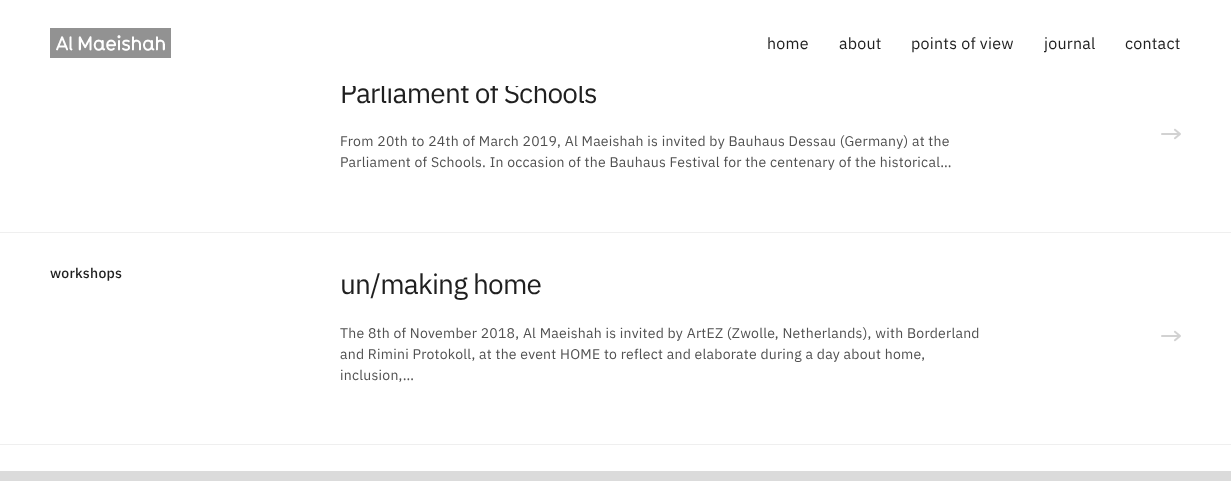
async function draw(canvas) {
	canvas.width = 1231;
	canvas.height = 481;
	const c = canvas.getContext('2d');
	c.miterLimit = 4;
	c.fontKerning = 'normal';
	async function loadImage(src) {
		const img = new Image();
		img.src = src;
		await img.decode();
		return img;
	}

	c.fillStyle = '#fff';
	c.fillRect(0, 0, 1231, 481);
	c.drawImage(await loadImage('img1.png'), 50, 28, 121, 30);
	c.letterSpacing = '0.25px';
	c.font = '16px IBM Plex Sans';
	c.fillStyle = '#1f1f1f';
	for (const [text, x, y] of [
		['home', 767, 49],
		['about', 839, 49],
		['points of view', 911, 49],
		['journal', 1044, 49],
		['contact', 1125, 49],
	]) {
		c.fillText(text, x, y);
	}
	c.letterSpacing = '-0.8px';
	c.font = '28px IBM Plex Sans';
	c.fillText('Parliament of Schools', 340, 103);
	c.fillStyle = '#fff';
	c.fillRect(342, 82, 240, 4);
	c.fillStyle = '#dbdbdb';
	c.fillRect(0, 471, 1231, 10);
	c.letterSpacing = '0.25px';
	c.font = '14px IBM Plex Sans';
	c.fillStyle = '#505050';
	c.fillText('From 20th to 24th of March 2019, Al Maeishah is invited by Bauhaus Dessau (Germany) at the', 340, 146);
	c.fillText('Parliament of Schools. In occasion of the Bauhaus Festival for the centenary of the historical…', 340, 167);
	c.drawImage(await loadImage('img2.png'), 1161, 128, 20, 12);
	c.fillStyle = '#efefef';
	c.fillRect(0, 232, 1231, 1);
	c.font = '500 14px IBM Plex Sans';
	c.fillStyle = '#1f1f1f';
	c.fillText('workshops', 50, 278);
	c.letterSpacing = '-0.8px';
	c.font = '28px IBM Plex Sans';
	c.fillText('un/making home', 340, 294);
	c.letterSpacing = '0.25px';
	c.font = '14px IBM Plex Sans';
	c.fillStyle = '#505050';
	for (const [text, x, y] of [
		['The 8th of November 2018, Al Maeishah is invited by ArtEZ (Zwolle, Netherlands), with Borderland', 340, 338],
		['and Rimini Protokoll, at the event HOME to reflect and elaborate during a day about home,', 340, 359],
		['inclusion,…', 340, 380],
	]) {
		c.fillText(text, x, y);
	}
	c.drawImage(await loadImage('img2.png'), 1161, 330, 20, 12);
	c.fillStyle = '#efefef';
	c.fillRect(0, 444, 1231, 1);
}

draw(document.querySelector('canvas'));
